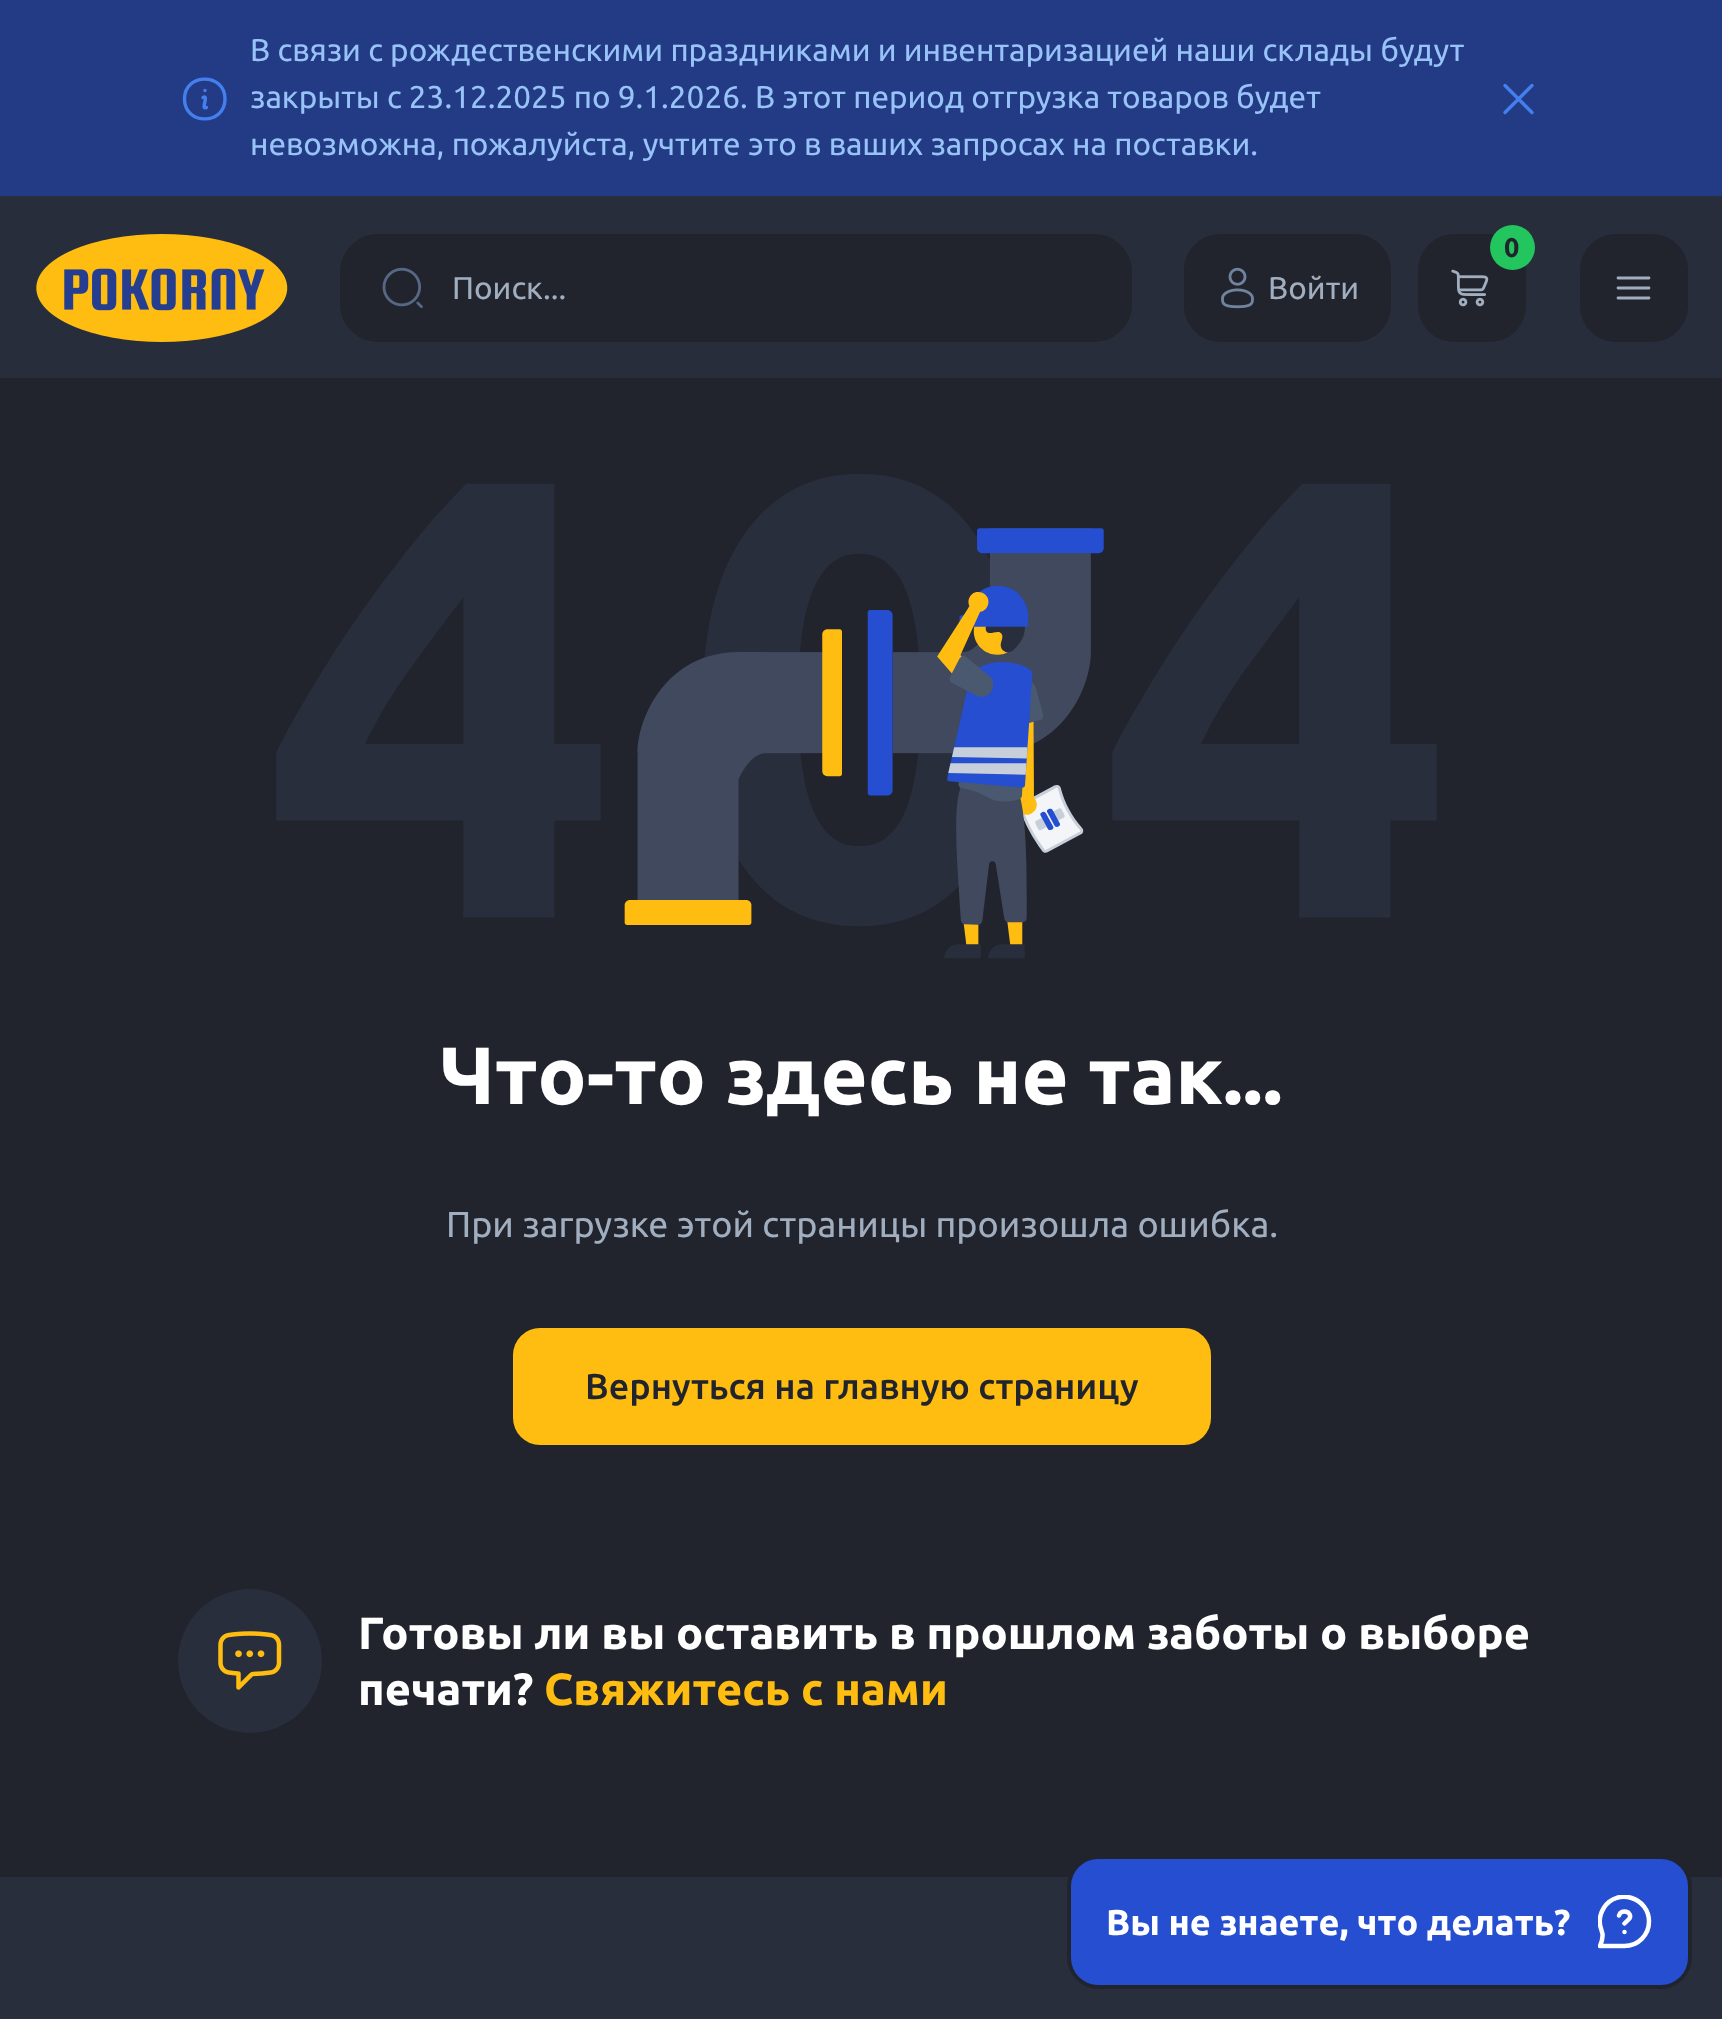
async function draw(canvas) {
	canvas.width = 1722;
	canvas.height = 2019;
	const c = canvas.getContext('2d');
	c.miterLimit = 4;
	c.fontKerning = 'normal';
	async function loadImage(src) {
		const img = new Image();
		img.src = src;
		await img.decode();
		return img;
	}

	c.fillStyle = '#21242c';
	c.fillRect(0, 0, 1722, 2019);
	c.fillStyle = '#233a85';
	c.fillRect(0, 0, 1722, 196);
	c.fillStyle = '#292e3d';
	c.fillRect(0, 196, 1722, 2);
	c.beginPath();
	c.moveTo(203, 97.5);
	c.bezierCurveTo(209.5, 94, 200, 110.5, 206.5, 107.5);
	c.moveTo(225, 99);
	c.bezierCurveTo(225, 125.5, 184.5, 125.5, 184.5, 99);
	c.bezierCurveTo(184.5, 72.5, 225, 72.5, 225, 99);
	c.closePath();
	c.moveTo(205, 90.5);
	c.lineTo(205, 90.5);
	c.closePath();
	c.strokeStyle = '#4380ee';
	c.lineWidth = 3.4;
	c.lineCap = 'round';
	c.lineJoin = 'round';
	c.stroke();
	c.font = '31.5px Ubuntu';
	c.fillStyle = '#98c3f8';
	for (const [text, x, y] of [
		['В связи с рождественскими праздниками и инвентаризацией наши склады будут', 250, 61],
		['закрыты с 23.12.2025 по 9.1.2026. В этот период отгрузка товаров будет', 250, 108],
		['невозможна, пожалуйста, учтите это в ваших запросах на поставки.', 250, 155],
	]) {
		c.fillText(text, x, y);
	}
	c.beginPath();
	c.moveTo(1505, 112.5);
	c.lineTo(1532, 85.5);
	c.moveTo(1505, 85.5);
	c.lineTo(1532, 112.5);
	c.stroke();
	c.fillStyle = '#282d3b';
	c.fillRect(0, 198, 1722, 180);
	c.drawImage(await loadImage('img1.png'), 36, 234, 252, 108);
	c.beginPath();
	c.roundRect(341, 235, 790, 106, 37);
	c.strokeStyle = '#21242c';
	c.lineWidth = 2;
	c.lineJoin = 'miter';
	c.stroke();
	c.fillStyle = '#21242c';
	c.beginPath();
	c.roundRect(342, 236, 788, 104, 36);
	c.fill();
	c.drawImage(await loadImage('img2.png'), 382, 267, 41, 42);
	c.fillStyle = '#a0aec0';
	c.fillText('Поиск...', 452, 299);
	c.fillStyle = '#21242c';
	c.beginPath();
	c.roundRect(1418, 234, 108, 108, 36);
	c.fill();
	c.fillStyle = '#22c55e';
	c.beginPath();
	c.arc(1512.5, 247.5, 22.5, 0, 2 * Math.PI);
	c.fill();
	c.font = 'bold 27px Ubuntu';
	c.fillStyle = '#21242c';
	c.fillText('0', 1504, 257);
	c.drawImage(await loadImage('img3.png'), 1451, 269, 38, 38);
	c.beginPath();
	c.roundRect(1184, 234, 207, 108, 36);
	c.fill();
	c.drawImage(await loadImage('img4.png'), 1221, 267, 33, 42);
	c.font = '31.5px Ubuntu';
	c.fillStyle = '#a0aec0';
	c.fillText('Войти', 1268, 299);
	c.fillStyle = '#21242c';
	c.beginPath();
	c.roundRect(1580, 234, 108, 108, 36);
	c.fill();
	c.beginPath();
	c.moveTo(1618, 278);
	c.lineTo(1649, 278);
	c.moveTo(1618, 288);
	c.lineTo(1649, 288);
	c.moveTo(1618, 298);
	c.lineTo(1649, 298);
	c.strokeStyle = '#a0aec0';
	c.lineWidth = 2.8;
	c.lineJoin = 'round';
	c.stroke();
	c.drawImage(await loadImage('img5.png'), 276, 473, 1161, 486);
	c.font = 'bold 81px Ubuntu';
	c.fillStyle = '#fff';
	c.fillText('Что-то здесь не так...', 440, 1104);
	c.font = '36px Ubuntu';
	c.fillStyle = '#a0aec0';
	c.fillText('При загрузке этой страницы произошла ошибка.', 446, 1237);
	c.fillStyle = '#febd10';
	c.beginPath();
	c.roundRect(513, 1328, 698, 117, 27);
	c.fill();
	c.font = '500 36px Ubuntu';
	c.fillStyle = '#21242c';
	c.fillText('Вернуться на главную страницу', 585, 1399);
	c.fillStyle = '#292e3d';
	c.beginPath();
	c.arc(250, 1661, 72, 0, 2 * Math.PI);
	c.fill();
	c.drawImage(await loadImage('img6.png'), 218, 1631, 64, 59);
	c.font = 'bold 45px Ubuntu';
	c.fillStyle = '#fff';
	c.fillText('Готовы ли вы оставить в прошлом заботы о выборе', 358, 1649);
	c.fillText('печати?', 358, 1705);
	c.fillStyle = '#febd10';
	c.fillText('Свяжитесь с нами', 544, 1705);
	c.fillStyle = '#292e3d';
	c.fillRect(0, 1877, 1722, 142);
	c.beginPath();
	c.roundRect(1069.5, 1856.5, 620, 130, 29.5);
	c.strokeStyle = '#21242c';
	c.lineWidth = 5;
	c.lineJoin = 'miter';
	c.stroke();
	c.fillStyle = '#254ed0';
	c.beginPath();
	c.roundRect(1071, 1859, 617, 126, 27);
	c.fill();
	c.font = 'bold 36px Ubuntu';
	c.fillStyle = '#fff';
	c.fillText('Вы не знаете, что делать?', 1106, 1935);
	c.save();
	c.beginPath();
	c.rect(1598, 1895, 54, 54);
	c.clip();
	c.beginPath();
	c.moveTo(1624.5, 1923.5);
	c.lineTo(1629.5, 1918.5);
	c.bezierCurveTo(1633, 1912, 1621, 1908, 1619, 1915.5);
	c.moveTo(1624.5, 1932);
	c.lineTo(1624.5, 1932);
	c.moveTo(1649, 1921.5);
	c.bezierCurveTo(1649, 1935, 1638, 1946, 1624.5, 1946);
	c.lineTo(1600, 1946);
	c.bezierCurveTo(1601.5, 1942.5, 1603, 1938, 1602.5, 1934);
	c.lineTo(1601, 1928.5);
	c.bezierCurveTo(1598.5, 1921.5, 1600, 1914, 1604, 1907.5);
	c.bezierCurveTo(1617.5, 1887.5, 1649, 1897.5, 1649, 1921.5);
	c.closePath();
	c.strokeStyle = '#fff';
	c.lineWidth = 4.5;
	c.lineJoin = 'round';
	c.stroke();
	c.restore();
}

draw(document.querySelector('canvas'));
